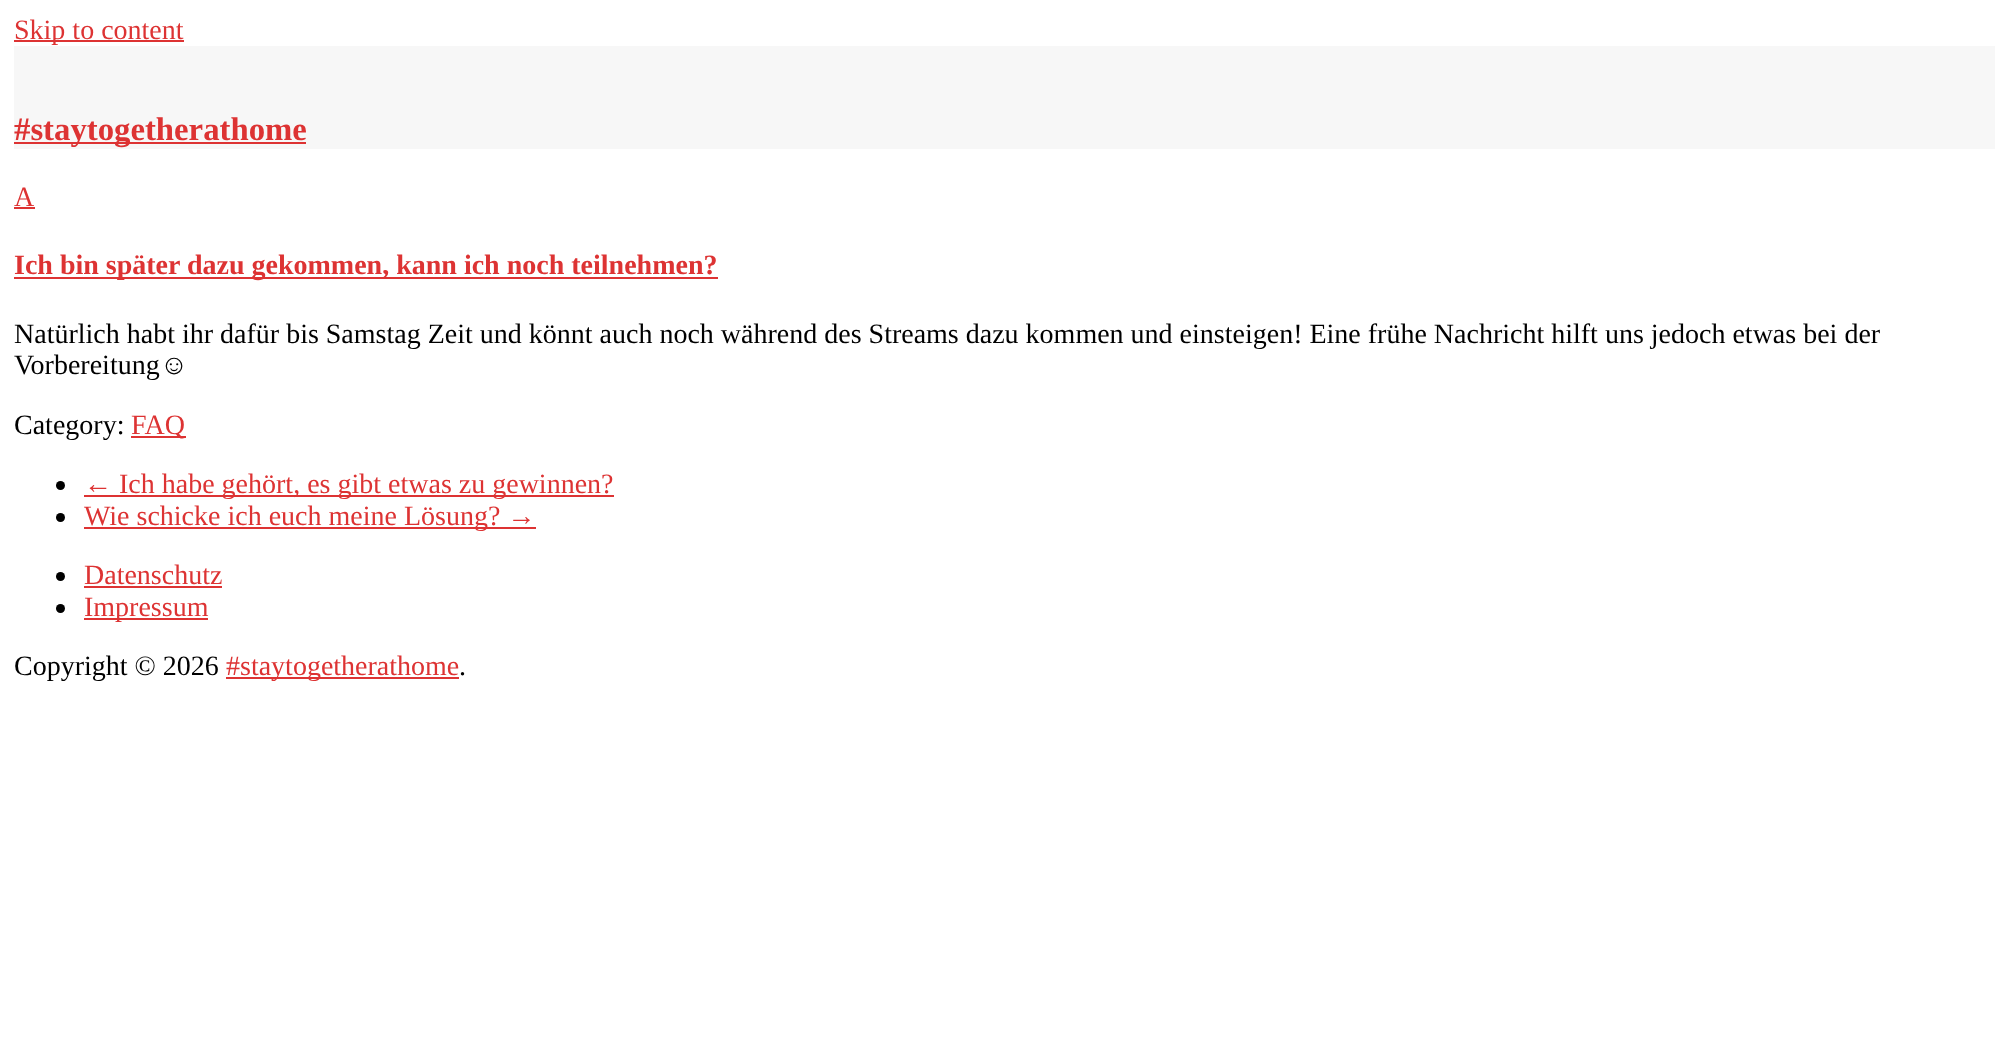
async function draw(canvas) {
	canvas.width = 2008;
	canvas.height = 1048;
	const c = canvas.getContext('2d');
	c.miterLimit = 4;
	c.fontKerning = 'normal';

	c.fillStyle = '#fff';
	c.fillRect(0, 0, 2008, 1048);
	c.fillStyle = '#d33';
	c.fillRect(14, 40, 170, 2);
	c.font = '28px Liberation Serif';
	c.fillText('Skip to content', 14, 39);
	c.fillStyle = '#f7f7f7';
	c.fillRect(14, 46, 1981, 103);
	c.fillStyle = '#d33';
	c.fillRect(14, 142, 292, 2);
	c.font = 'bold 32.75px Liberation Serif';
	c.fillText('#staytogetherathome', 14, 140);
	c.font = '28px Liberation Serif';
	c.fillText('A', 14, 206);
	c.fillRect(14, 207, 21, 2);
	c.fillRect(14, 277, 704, 2);
	c.font = 'bold 28px Liberation Serif';
	c.fillText('Ich bin später dazu gekommen, kann ich noch teilnehmen?', 14, 274);
	c.font = '28px Liberation Serif';
	c.fillStyle = '#000';
	for (const [text, x, y] of [
		['Natürlich habt ihr dafür bis Samstag Zeit und könnt auch noch während des Streams dazu kommen und einsteigen! Eine frühe Nachricht hilft uns jedoch etwas bei der', 14, 343],
		['Vorbereitung☺', 14, 374],
		['Category:', 14, 434],
	]) {
		c.fillText(text, x, y);
	}
	c.fillStyle = '#d33';
	c.fillRect(131, 436, 55, 2);
	c.fillText('FAQ', 131, 434);
	c.fillStyle = '#000';
	c.beginPath();
	c.arc(60.5, 485.5, 4.5, 0, 2 * Math.PI);
	c.fill();
	c.fillStyle = '#d33';
	c.fillRect(84, 495, 530, 2);
	c.fillText('← Ich habe gehört, es gibt etwas zu gewinnen?', 84, 493);
	c.fillStyle = '#000';
	c.beginPath();
	c.arc(60.5, 517.5, 4.5, 0, 2 * Math.PI);
	c.fill();
	c.fillStyle = '#d33';
	c.fillRect(84, 527, 452, 2);
	c.fillText('Wie schicke ich euch meine Lösung? →', 84, 525);
	c.fillStyle = '#000';
	c.beginPath();
	c.arc(60.5, 576.5, 4.5, 0, 2 * Math.PI);
	c.fill();
	c.fillStyle = '#d33';
	c.fillText('Datenschutz', 84, 584);
	c.fillRect(84, 586, 138, 2);
	c.fillStyle = '#000';
	c.beginPath();
	c.arc(60.5, 608.5, 4.5, 0, 2 * Math.PI);
	c.fill();
	c.fillStyle = '#d33';
	c.fillRect(84, 618, 124, 2);
	c.fillText('Impressum', 84, 616);
	c.fillStyle = '#000';
	c.fillText('Copyright © 2026', 14, 675);
	c.fillStyle = '#d33';
	c.fillRect(226, 677, 233, 2);
	c.fillText('#staytogetherathome', 226, 675);
	c.fillStyle = '#000';
	c.fillText('.', 459, 675);
}

draw(document.querySelector('canvas'));
